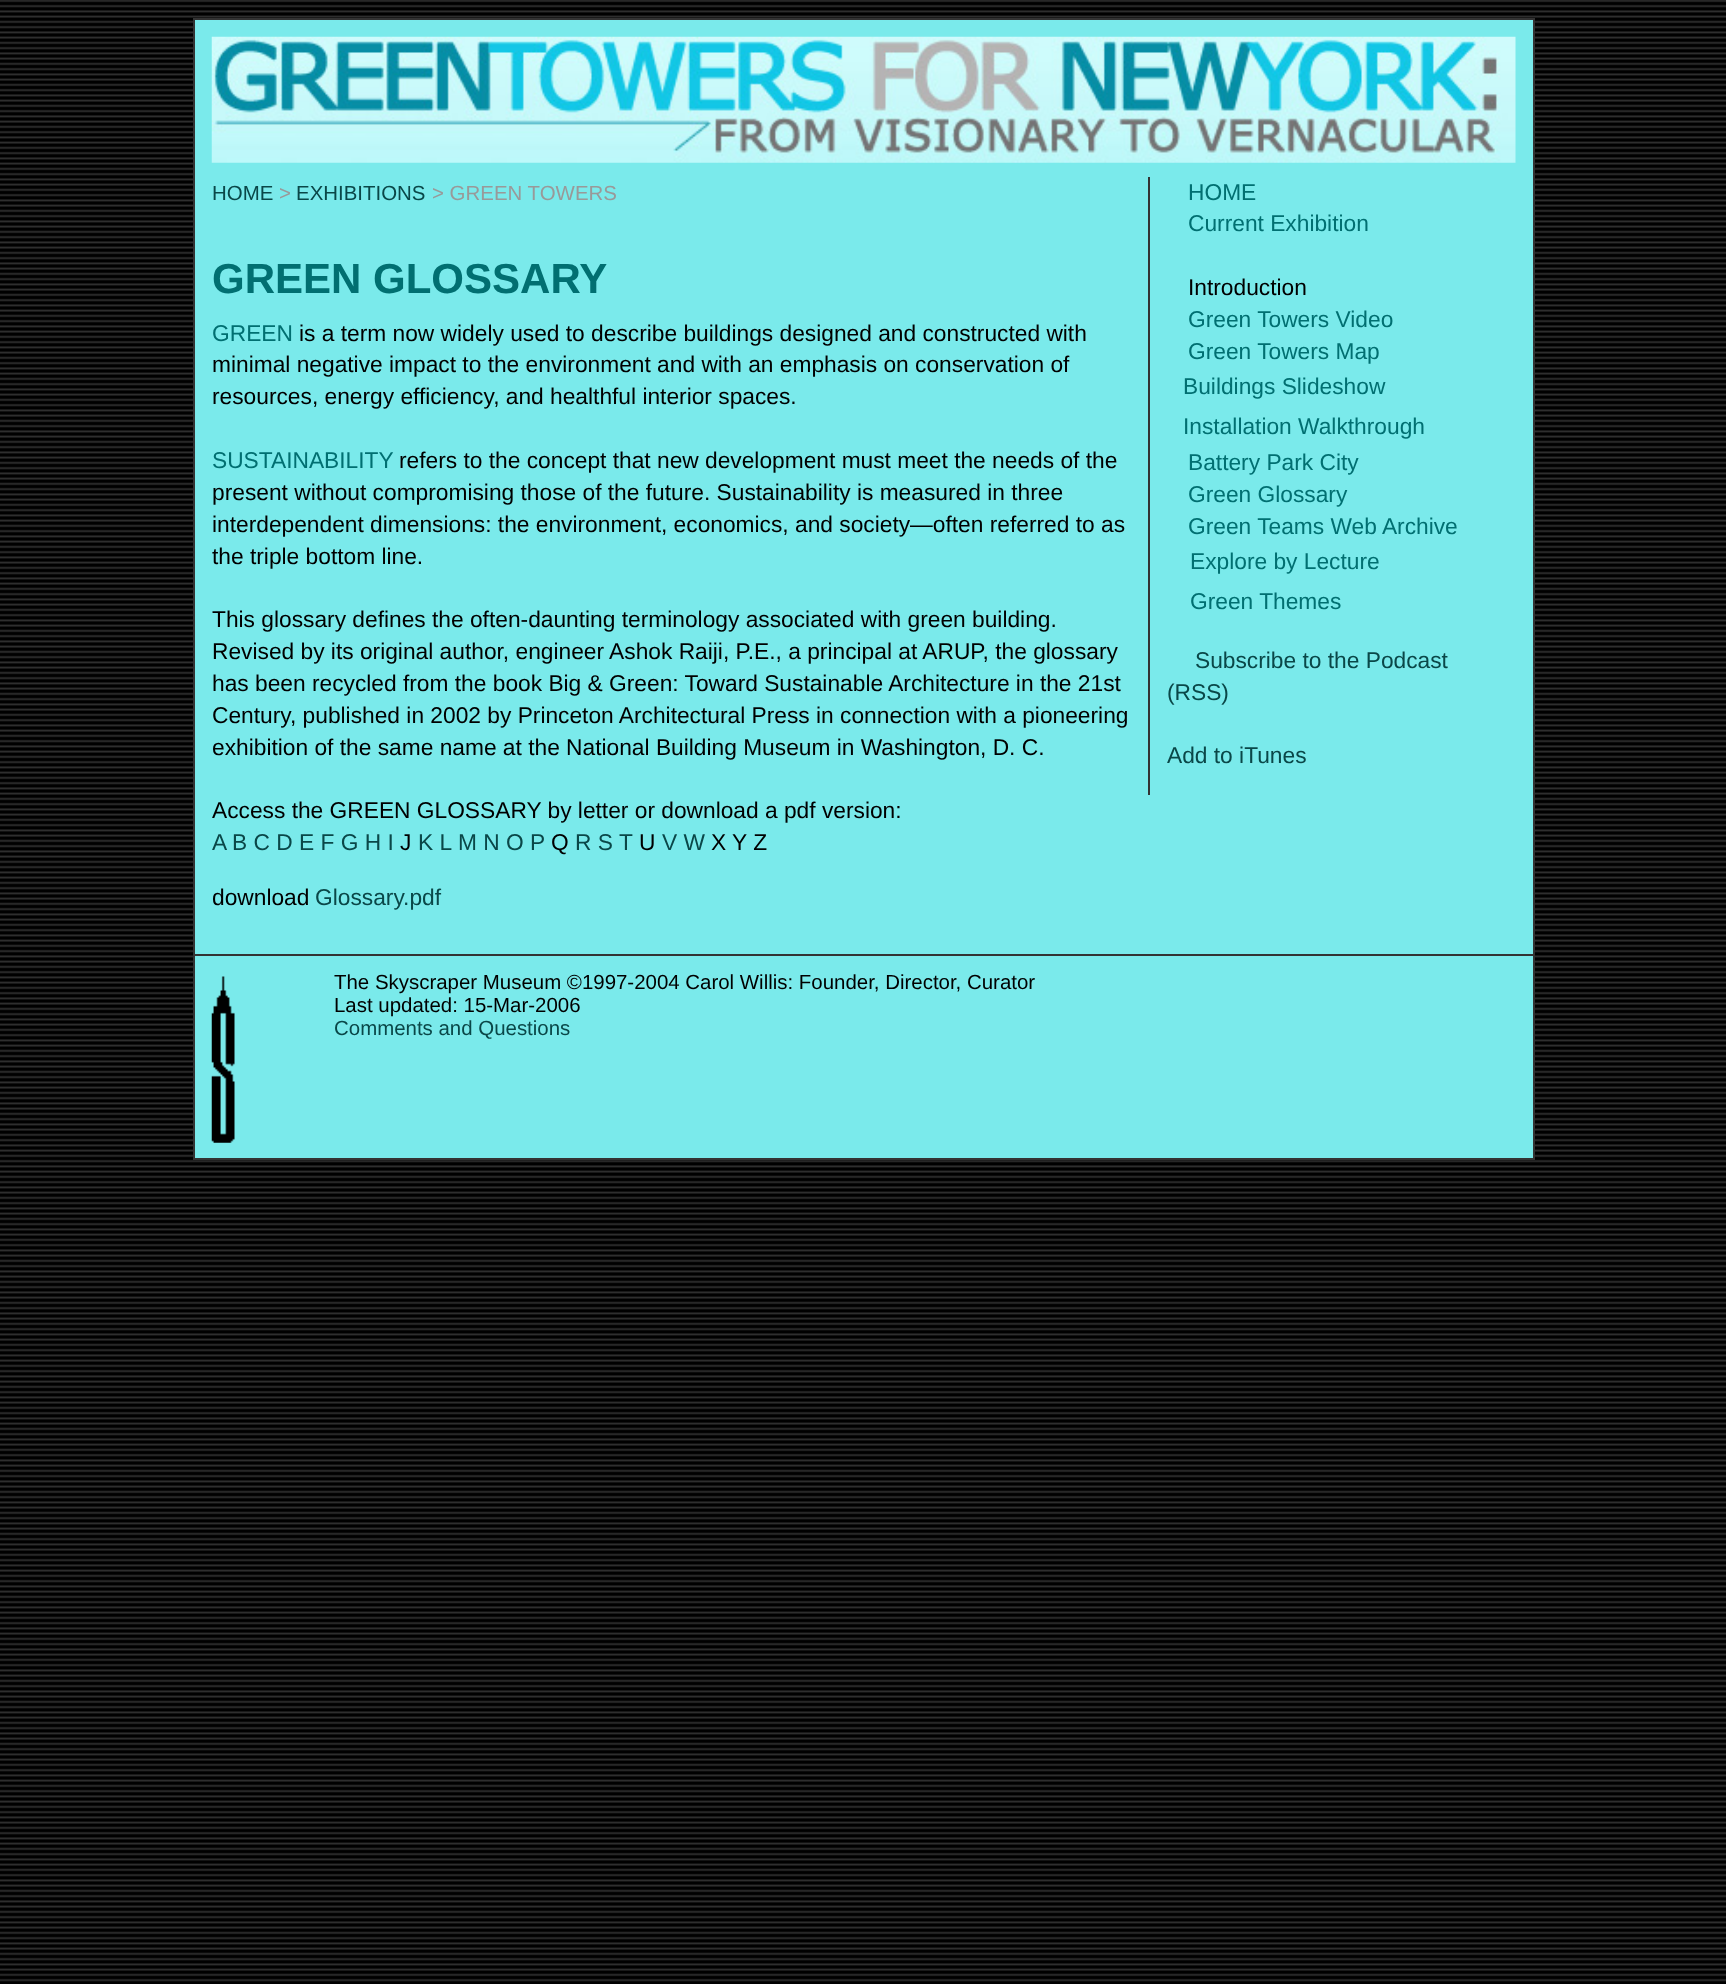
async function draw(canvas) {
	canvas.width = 1726;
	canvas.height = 1984;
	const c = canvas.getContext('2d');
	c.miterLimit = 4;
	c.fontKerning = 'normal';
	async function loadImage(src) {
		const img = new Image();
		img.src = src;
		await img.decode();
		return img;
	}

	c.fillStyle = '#fff';
	c.fillRect(0, 0, 1726, 1984);
	c.drawImage(await loadImage('img1.png'), 0, 0, 1726, 1984);
	c.fillStyle = '#7aeaeb';
	c.beginPath();
	c.rect(194, 19, 1340, 1140);
	c.fill();
	c.strokeStyle = '#333';
	c.lineWidth = 2;
	c.stroke();
	c.drawImage(await loadImage('img2.png'), 211, 36, 1305, 127);
	c.font = '20.45px Liberation Sans';
	c.fillStyle = '#0a4748';
	c.fillText('HOME', 212, 200);
	c.fillStyle = '#999';
	c.fillText('>', 279, 200);
	c.fillStyle = '#0a4748';
	c.fillText('EXHIBITIONS', 296, 200);
	c.fillStyle = '#999';
	c.fillText('> GREEN TOWERS', 432, 200);
	c.font = 'bold 42px Liberation Sans';
	c.fillStyle = '#016f71';
	c.fillText('GREEN GLOSSARY', 212, 293);
	c.font = '22.75px Liberation Sans';
	c.fillText('GREEN', 212, 341);
	c.fillStyle = '#000';
	for (const [text, x, y] of [
		['is a term now widely used to describe buildings designed and constructed with', 299, 341],
		['minimal negative impact to the environment and with an emphasis on conservation of', 212, 372],
		['resources, energy efficiency, and healthful interior spaces.', 212, 404],
	]) {
		c.fillText(text, x, y);
	}
	c.fillStyle = '#016f71';
	c.fillText('SUSTAINABILITY', 212, 468);
	c.fillStyle = '#000';
	for (const [text, x, y] of [
		['refers to the concept that new development must meet the needs of the', 399, 468],
		['present without compromising those of the future. Sustainability is measured in three', 212, 500],
		['interdependent dimensions: the environment, economics, and society—often referred to as', 212, 532],
		['the triple bottom line.', 212, 564],
		['This glossary defines the often-daunting terminology associated with green building.', 212, 627],
		['Revised by its original author, engineer Ashok Raiji, P.E., a principal at ARUP, the glossary', 212, 659],
		['has been recycled from the book Big & Green: Toward Sustainable Architecture in the 21st', 212, 691],
		['Century, published in 2002 by Princeton Architectural Press in connection with a pioneering', 212, 723],
		['exhibition of the same name at the National Building Museum in Washington, D. C.', 212, 755],
		['Access the GREEN GLOSSARY by letter or download a pdf version:', 212, 818],
	]) {
		c.fillText(text, x, y);
	}
	c.fillStyle = '#0a4748';
	c.fillText('A', 212, 850);
	c.fillText('B C D E F G H I', 232, 850);
	c.fillStyle = '#000';
	c.fillText('J', 400, 850);
	c.fillStyle = '#0a4748';
	c.fillText('K L', 418, 850);
	c.fillText('M N O P', 458, 850);
	c.fillStyle = '#000';
	c.fillText('Q', 551, 850);
	c.fillStyle = '#0a4748';
	c.fillText('R S', 575, 850);
	c.fillText('T', 619, 850);
	c.fillStyle = '#000';
	c.fillText('U', 639, 850);
	c.fillStyle = '#0a4748';
	c.fillText('V W', 662, 850);
	c.fillStyle = '#000';
	c.fillText('X Y Z', 711, 850);
	c.fillText('download', 212, 905);
	c.fillStyle = '#0a4748';
	c.fillText('Glossary.pdf', 315, 905);
	c.fillStyle = '#333';
	c.fillRect(1148, 177, 2, 618);
	c.fillStyle = '#016f71';
	c.fillText('HOME', 1188, 200);
	c.fillText('Current Exhibition', 1188, 231);
	c.fillStyle = '#000';
	c.fillText('Introduction', 1188, 295);
	c.fillStyle = '#016f71';
	for (const [text, x, y] of [
		['Green Towers Video', 1188, 327],
		['Green Towers Map', 1188, 359],
		['Buildings Slideshow', 1183, 394],
		['Installation Walkthrough', 1183, 434],
		['Battery Park City', 1188, 470],
		['Green Glossary', 1188, 502],
		['Green Teams Web Archive', 1188, 534],
		['Explore by Lecture', 1190, 569],
		['Green Themes', 1190, 609],
	]) {
		c.fillText(text, x, y);
	}
	c.fillStyle = '#0a4748';
	for (const [text, x, y] of [
		['Subscribe to the Podcast', 1195, 668],
		['(RSS)', 1167, 700],
		['Add to iTunes', 1167, 763],
	]) {
		c.fillText(text, x, y);
	}
	c.fillStyle = '#333';
	c.fillRect(194, 954, 1339, 2);
	c.drawImage(await loadImage('img3.png'), 211, 976, 24, 167);
	c.font = '20.45px Liberation Sans';
	c.fillStyle = '#000';
	c.fillText('The Skyscraper Museum ©1997-2004 Carol Willis: Founder, Director, Curator', 334, 989);
	c.fillText('Last updated: 15-Mar-2006', 334, 1012);
	c.fillStyle = '#0a4748';
	c.fillText('Comments and Questions', 334, 1035);
}

draw(document.querySelector('canvas'));
